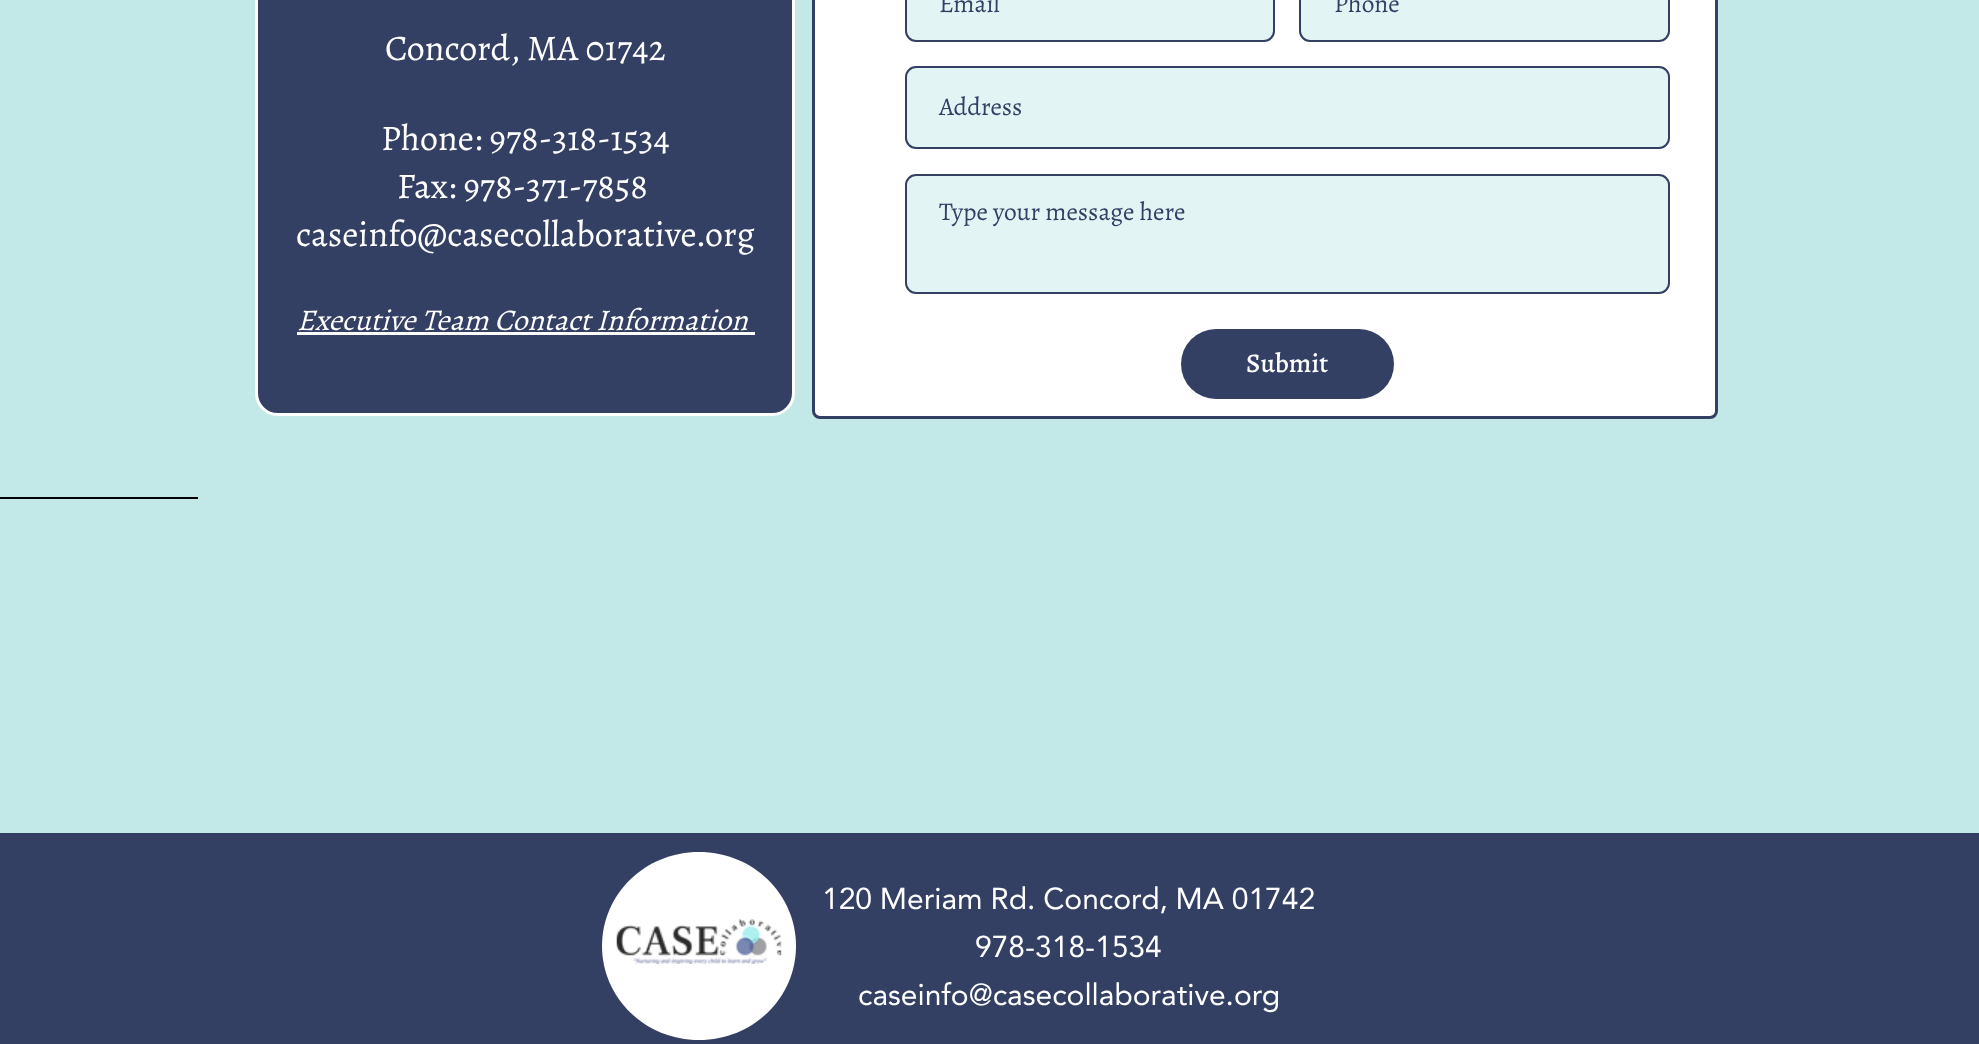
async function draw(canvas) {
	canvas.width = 1979;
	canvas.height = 1044;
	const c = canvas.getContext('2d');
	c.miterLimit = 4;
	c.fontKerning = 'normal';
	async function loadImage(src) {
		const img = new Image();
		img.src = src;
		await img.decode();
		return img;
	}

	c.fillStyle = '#c3e8e8';
	c.fillRect(0, 0, 1979, 1044);
	c.fillStyle = '#343f64';
	c.beginPath();
	c.roundRect(256.5, -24.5, 537, 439, 21.5);
	c.fill();
	c.strokeStyle = '#fff';
	c.lineWidth = 3;
	c.stroke();
	c.font = '36px Alegreya';
	c.fillStyle = '#fff';
	for (const [text, x, y] of [
		['Concord, MA 01742', 385, 60],
		['Phone: 978-318-1534', 381, 150],
		['Fax: 978-371-7858', 397, 198],
		['caseinfo@casecollaborative.org', 296, 246],
	]) {
		c.fillText(text, x, y);
	}
	c.font = 'italic 30px Alegreya';
	c.fillText('Executive Team Contact Information', 297, 330);
	c.fillRect(297, 332, 458, 3);
	c.beginPath();
	c.roundRect(813.5, -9.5, 903, 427, 6.5);
	c.fill();
	c.strokeStyle = '#343f64';
	c.stroke();
	c.fillStyle = '#e2f4f4';
	c.beginPath();
	c.roundRect(906, -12, 368, 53, 10);
	c.fill();
	c.lineWidth = 2;
	c.stroke();
	c.font = '25.5px Alegreya';
	c.fillStyle = '#343f64';
	c.fillText('Email', 939, 12);
	c.fillStyle = '#e2f4f4';
	c.beginPath();
	c.roundRect(1300, -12, 369, 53, 10);
	c.fill();
	c.stroke();
	c.fillStyle = '#343f64';
	c.fillText('Phone', 1334, 12);
	c.fillStyle = '#e2f4f4';
	c.beginPath();
	c.roundRect(906, 67, 763, 81, 10);
	c.fill();
	c.stroke();
	c.fillStyle = '#343f64';
	c.fillText('Address', 939, 115);
	c.fillStyle = '#e2f4f4';
	c.beginPath();
	c.roundRect(906, 175, 763, 118, 10);
	c.fill();
	c.stroke();
	c.fillStyle = '#343f64';
	c.fillText('Type your message here', 939, 220);
	c.beginPath();
	c.roundRect(1181, 329, 213, 70, 35);
	c.fill();
	c.font = '500 27px Alegreya';
	c.fillStyle = '#fff';
	c.fillText('Submit', 1246, 372);
	c.fillStyle = '#000';
	c.fillRect(0, 497, 198, 2);
	c.fillStyle = '#343f64';
	c.fillRect(0, 833, 1979, 211);
	c.fillStyle = '#fff';
	c.beginPath();
	c.moveTo(796, 946);
	c.bezierCurveTo(796, 998, 753, 1040, 699, 1040);
	c.bezierCurveTo(645, 1040, 602, 998, 602, 946);
	c.bezierCurveTo(602, 894, 645, 852, 699, 852);
	c.bezierCurveTo(753, 852, 796, 894, 796, 946);
	c.closePath();
	c.fill();
	c.font = '30px "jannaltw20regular"';
	for (const [text, x, y] of [
		['120 Meriam Rd. Concord, MA 01742', 822, 909],
		['978-318-1534', 975, 957],
		['caseinfo@casecollaborative.org', 858, 1005],
	]) {
		c.fillText(text, x, y);
	}
	c.drawImage(await loadImage('img1.png'), 616, 919, 166, 45);
}

draw(document.querySelector('canvas'));
